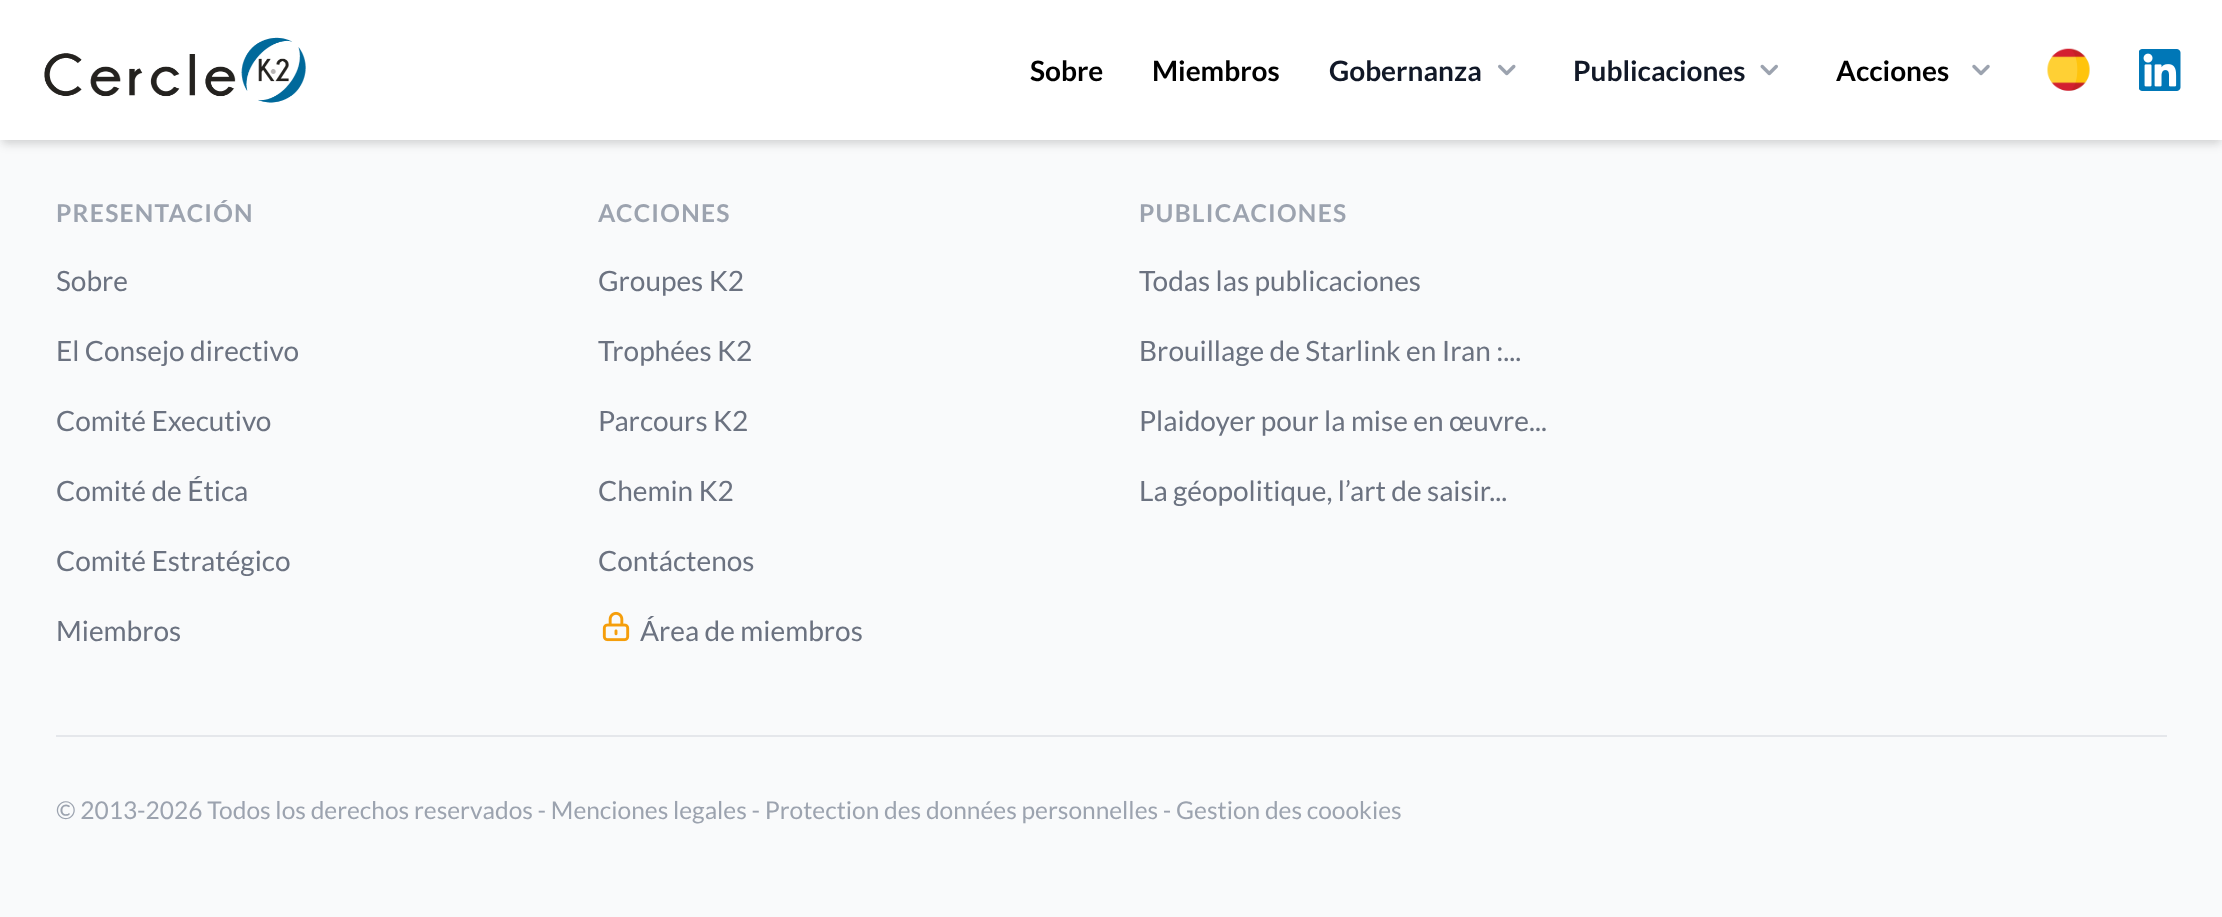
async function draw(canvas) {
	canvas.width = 2222;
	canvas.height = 917;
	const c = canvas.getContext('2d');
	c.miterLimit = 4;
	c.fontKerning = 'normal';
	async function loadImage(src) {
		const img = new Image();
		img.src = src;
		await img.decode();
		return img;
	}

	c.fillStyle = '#f9fafb';
	c.fillRect(0, 0, 2222, 917);
	c.fillStyle = '#0000000f';
	c.filter = 'blur(3.5px)';
	c.beginPath();
	c.rect(2, 5, 2219, 137);
	c.fill();
	c.filter = 'none';
	c.fillStyle = '#0000001a';
	c.filter = 'blur(5px)';
	c.beginPath();
	c.rect(2, 9, 2219, 136);
	c.fill();
	c.filter = 'none';
	c.fillStyle = '#fff';
	c.fillRect(0, 0, 2222, 140);
	c.drawImage(await loadImage('img1.png'), 44, 37, 262, 66);
	c.font = 'bold 28px Lato';
	c.fillStyle = '#000';
	c.fillText('Sobre', 1030, 81);
	c.fillText('Miembros', 1152, 81);
	c.fillStyle = '#111827';
	c.fillText('Gobernanza', 1329, 81);
	c.drawImage(await loadImage('img2.png'), 1498, 64, 18, 12);
	c.fillText('Publicaciones', 1573, 81);
	c.drawImage(await loadImage('img3.png'), 1760, 64, 18, 12);
	c.fillStyle = '#000';
	c.fillText('Acciones', 1836, 81);
	c.drawImage(await loadImage('img4.png'), 1972, 64, 18, 12);
	c.fillStyle = '#f3f4f6';
	c.beginPath();
	c.arc(2069, 70, 21, 0, 2 * Math.PI);
	c.fill();
	c.drawImage(await loadImage('img5.png'), 2047, 48, 43, 43);
	c.drawImage(await loadImage('img6.png'), 2139, 49, 42, 42);
	c.letterSpacing = '1.25px';
	c.font = 'bold 24.5px Lato';
	c.fillStyle = '#9ca3af';
	c.fillText('PRESENTACIÓN', 56, 222);
	c.letterSpacing = '0px';
	c.font = '28px Lato';
	c.fillStyle = '#6b7280';
	for (const [text, x, y] of [
		['Sobre', 56, 291],
		['El Consejo directivo', 56, 361],
		['Comité Executivo', 56, 431],
		['Comité de Ética', 56, 501],
		['Comité Estratégico', 56, 571],
		['Miembros', 56, 641],
	]) {
		c.fillText(text, x, y);
	}
	c.letterSpacing = '1.25px';
	c.font = 'bold 24.5px Lato';
	c.fillStyle = '#9ca3af';
	c.fillText('ACCIONES', 598, 222);
	c.letterSpacing = '0px';
	c.font = '28px Lato';
	c.fillStyle = '#6b7280';
	for (const [text, x, y] of [
		['Groupes K2', 598, 291],
		['Trophées K2', 598, 361],
		['Parcours K2', 598, 431],
		['Chemin K2', 598, 501],
		['Contáctenos', 598, 571],
	]) {
		c.fillText(text, x, y);
	}
	c.drawImage(await loadImage('img7.png'), 602, 611, 28, 31);
	c.fillText('Área de miembros', 640, 641);
	c.letterSpacing = '1.25px';
	c.font = 'bold 24.5px Lato';
	c.fillStyle = '#9ca3af';
	c.fillText('PUBLICACIONES', 1139, 222);
	c.letterSpacing = '0px';
	c.font = '28px Lato';
	c.fillStyle = '#6b7280';
	for (const [text, x, y] of [
		['Todas las publicaciones', 1139, 291],
		['Brouillage de Starlink en Iran :...', 1139, 361],
		['Plaidoyer pour la mise en œuvre...', 1139, 431],
		['La géopolitique, l’art de saisir...', 1139, 501],
	]) {
		c.fillText(text, x, y);
	}
	c.fillStyle = '#e5e7eb';
	c.fillRect(56, 735, 2111, 2);
	c.font = '24.5px Lato';
	c.fillStyle = '#9ca3af';
	c.fillText('© 2013-2026 Todos los derechos reservados - Menciones legales - Protection des données personnelles - Gestion des coookies', 56, 819);
}

draw(document.querySelector('canvas'));
